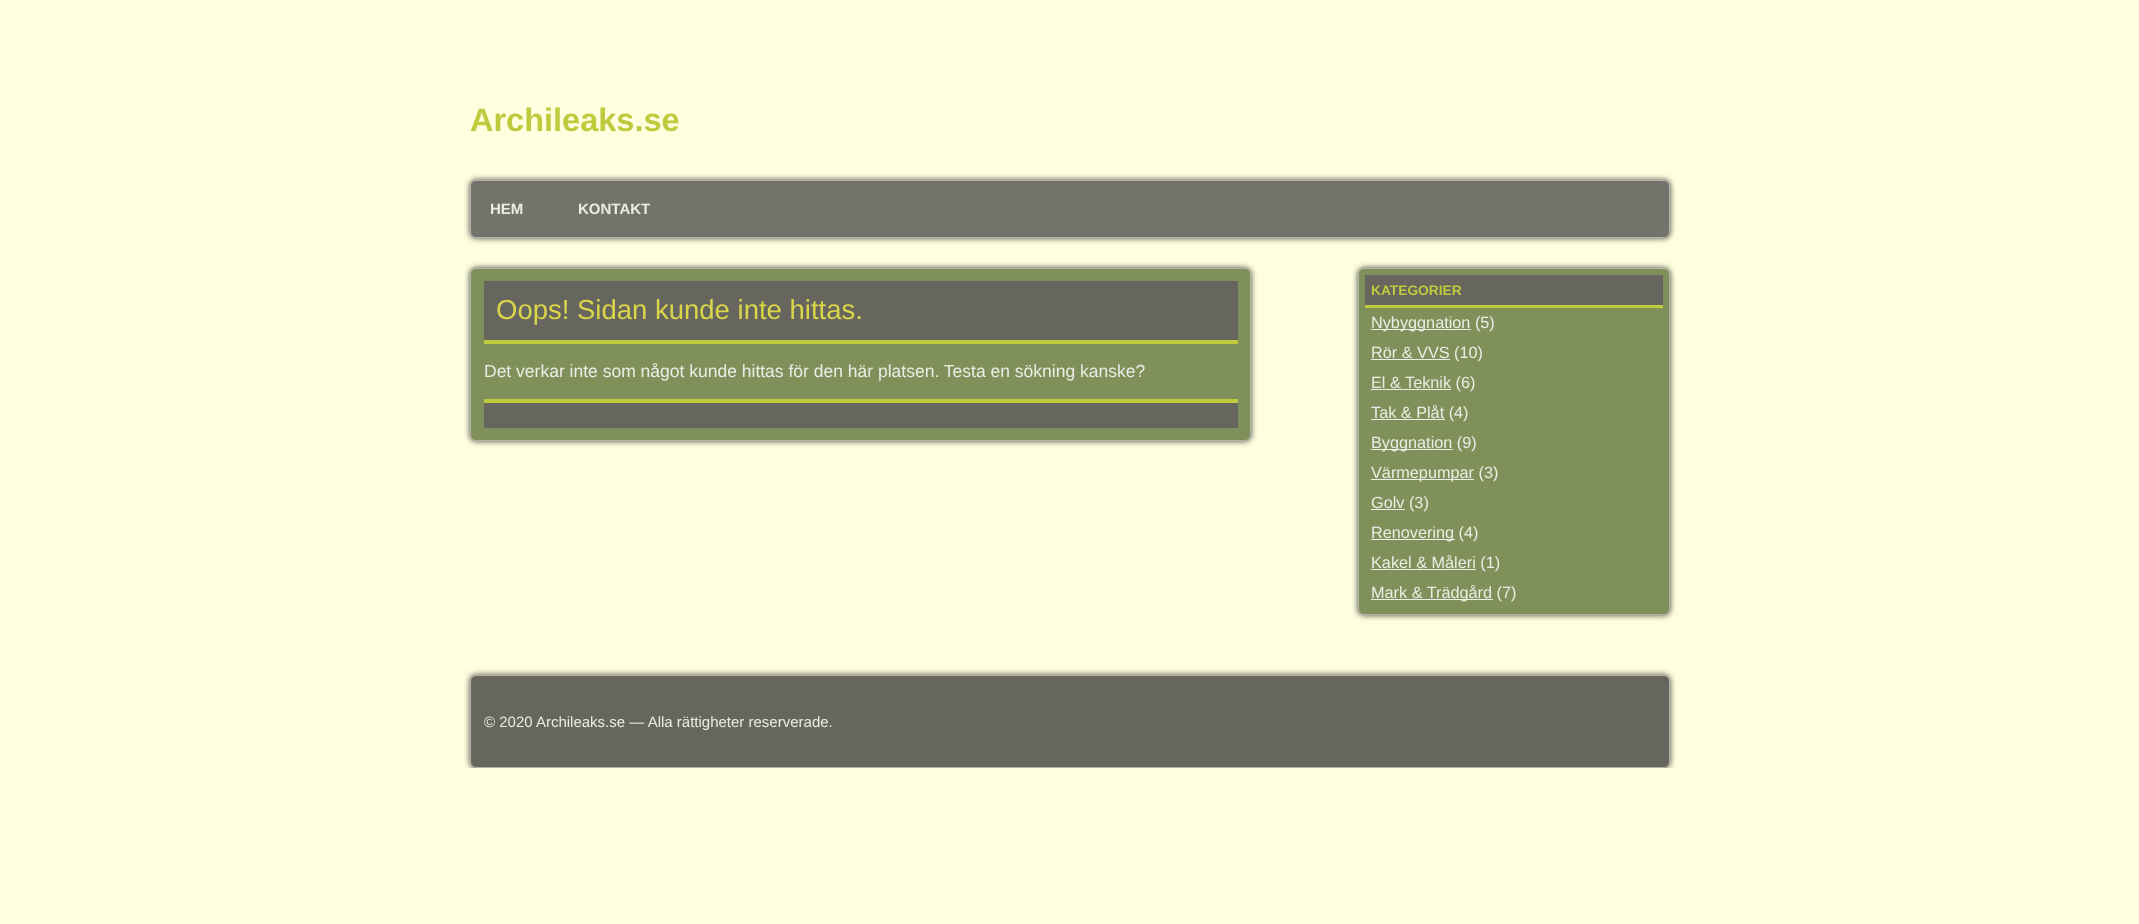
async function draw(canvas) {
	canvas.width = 2139;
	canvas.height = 924;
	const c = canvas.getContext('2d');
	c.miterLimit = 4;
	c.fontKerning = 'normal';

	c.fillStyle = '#ffffe0';
	c.fillRect(0, 0, 2139, 924);
	c.font = 'bold 32.5px Liberation Sans';
	c.fillStyle = '#bfca3d';
	c.fillText('Archileaks.se', 470, 131);
	c.fillStyle = '#73736b';
	c.beginPath();
	c.roundRect(470, 180, 1200, 58, 6);
	c.fill();
	c.save();
	c.beginPath();
	c.moveTo(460, 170);
	c.lineTo(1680, 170);
	c.lineTo(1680, 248);
	c.lineTo(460, 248);
	c.closePath();
	c.moveTo(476, 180);
	c.lineTo(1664, 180);
	c.bezierCurveTo(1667.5, 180, 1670, 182.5, 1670, 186);
	c.lineTo(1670, 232);
	c.bezierCurveTo(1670, 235.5, 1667.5, 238, 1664, 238);
	c.lineTo(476, 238);
	c.bezierCurveTo(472.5, 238, 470, 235.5, 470, 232);
	c.lineTo(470, 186);
	c.bezierCurveTo(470, 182.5, 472.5, 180, 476, 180);
	c.closePath();
	c.clip('evenodd');
	c.fillStyle = '#404038';
	c.filter = 'blur(3px)';
	c.beginPath();
	c.roundRect(470, 180, 1200, 58, 6);
	c.fill();
	c.filter = 'none';
	c.restore();
	c.beginPath();
	c.roundRect(470.5, 180.5, 1199, 57, 5.5);
	c.strokeStyle = '#b3b3ab';
	c.stroke();
	c.font = 'bold 15px Liberation Sans';
	c.fillStyle = '#ecece4';
	c.fillText('HEM', 490, 214);
	c.fillText('KONTAKT', 578, 214);
	c.fillStyle = '#404038';
	c.filter = 'blur(3px)';
	c.beginPath();
	c.roundRect(470, 268, 781, 173, 6);
	c.fill();
	c.filter = 'none';
	c.fillStyle = '#80905b';
	c.beginPath();
	c.roundRect(470.5, 268.5, 780, 172, 5.5);
	c.fill();
	c.stroke();
	c.fillStyle = '#66665e';
	c.fillRect(484, 281, 754, 59);
	c.fillStyle = '#bfca3d';
	c.fillRect(484, 340, 754, 4);
	c.font = '27.5px Liberation Sans';
	c.fillStyle = '#dad549';
	c.fillText('Oops! Sidan kunde inte hittas.', 496, 319);
	c.font = '17.5px Liberation Sans';
	c.fillStyle = '#ecece4';
	c.fillText('Det verkar inte som något kunde hittas för den här platsen. Testa en sökning kanske?', 484, 377);
	c.fillStyle = '#66665e';
	c.fillRect(484, 403, 754, 25);
	c.fillStyle = '#bfca3d';
	c.fillRect(484, 399, 754, 4);
	c.fillStyle = '#404038';
	c.filter = 'blur(3px)';
	c.beginPath();
	c.roundRect(1358, 268, 312, 347, 6);
	c.fill();
	c.filter = 'none';
	c.fillStyle = '#80905b';
	c.beginPath();
	c.roundRect(1358.5, 268.5, 311, 346, 5.5);
	c.fill();
	c.stroke();
	c.fillStyle = '#66665e';
	c.fillRect(1365, 275, 298, 30);
	c.fillStyle = '#bfca3d';
	c.fillRect(1365, 305, 298, 3);
	c.font = 'bold 13.75px Liberation Sans';
	c.fillText('KATEGORIER', 1371, 295);
	c.fillStyle = '#ecece4';
	c.fillRect(1371, 329, 100, 1);
	c.font = '16.25px Liberation Sans';
	c.fillText('Nybyggnation (5)', 1371, 328);
	c.fillRect(1371, 359, 79, 1);
	c.fillText('Rör & VVS (10)', 1371, 358);
	c.fillRect(1371, 389, 80, 1);
	c.fillText('El & Teknik (6)', 1371, 388);
	c.fillRect(1371, 419, 74, 1);
	c.fillText('Tak & Plåt (4)', 1371, 418);
	c.fillRect(1371, 449, 82, 1);
	c.fillText('Byggnation (9)', 1371, 448);
	c.fillRect(1371, 479, 103, 1);
	c.fillText('Värmepumpar (3)', 1371, 478);
	c.fillRect(1371, 509, 34, 1);
	c.fillText('Golv (3)', 1371, 508);
	c.fillRect(1371, 539, 84, 1);
	c.fillText('Renovering (4)', 1371, 538);
	c.fillRect(1371, 569, 105, 1);
	c.fillText('Kakel & Måleri (1)', 1371, 568);
	c.fillRect(1371, 599, 122, 1);
	c.fillText('Mark & Trädgård (7)', 1371, 598);
	c.save();
	c.beginPath();
	c.rect(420, 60, 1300, 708);
	c.clip();
	c.fillStyle = '#404038';
	c.filter = 'blur(3px)';
	c.beginPath();
	c.roundRect(470, 675, 1200, 93, 6);
	c.fill();
	c.filter = 'none';
	c.restore();
	c.fillStyle = '#66665e';
	c.beginPath();
	c.roundRect(470.5, 675.5, 1199, 92, 5.5);
	c.fill();
	c.stroke();
	c.font = '15px Liberation Sans';
	c.fillStyle = '#ecece4';
	c.fillText('© 2020 Archileaks.se — Alla rättigheter reserverade.', 484, 727);
}

draw(document.querySelector('canvas'));
